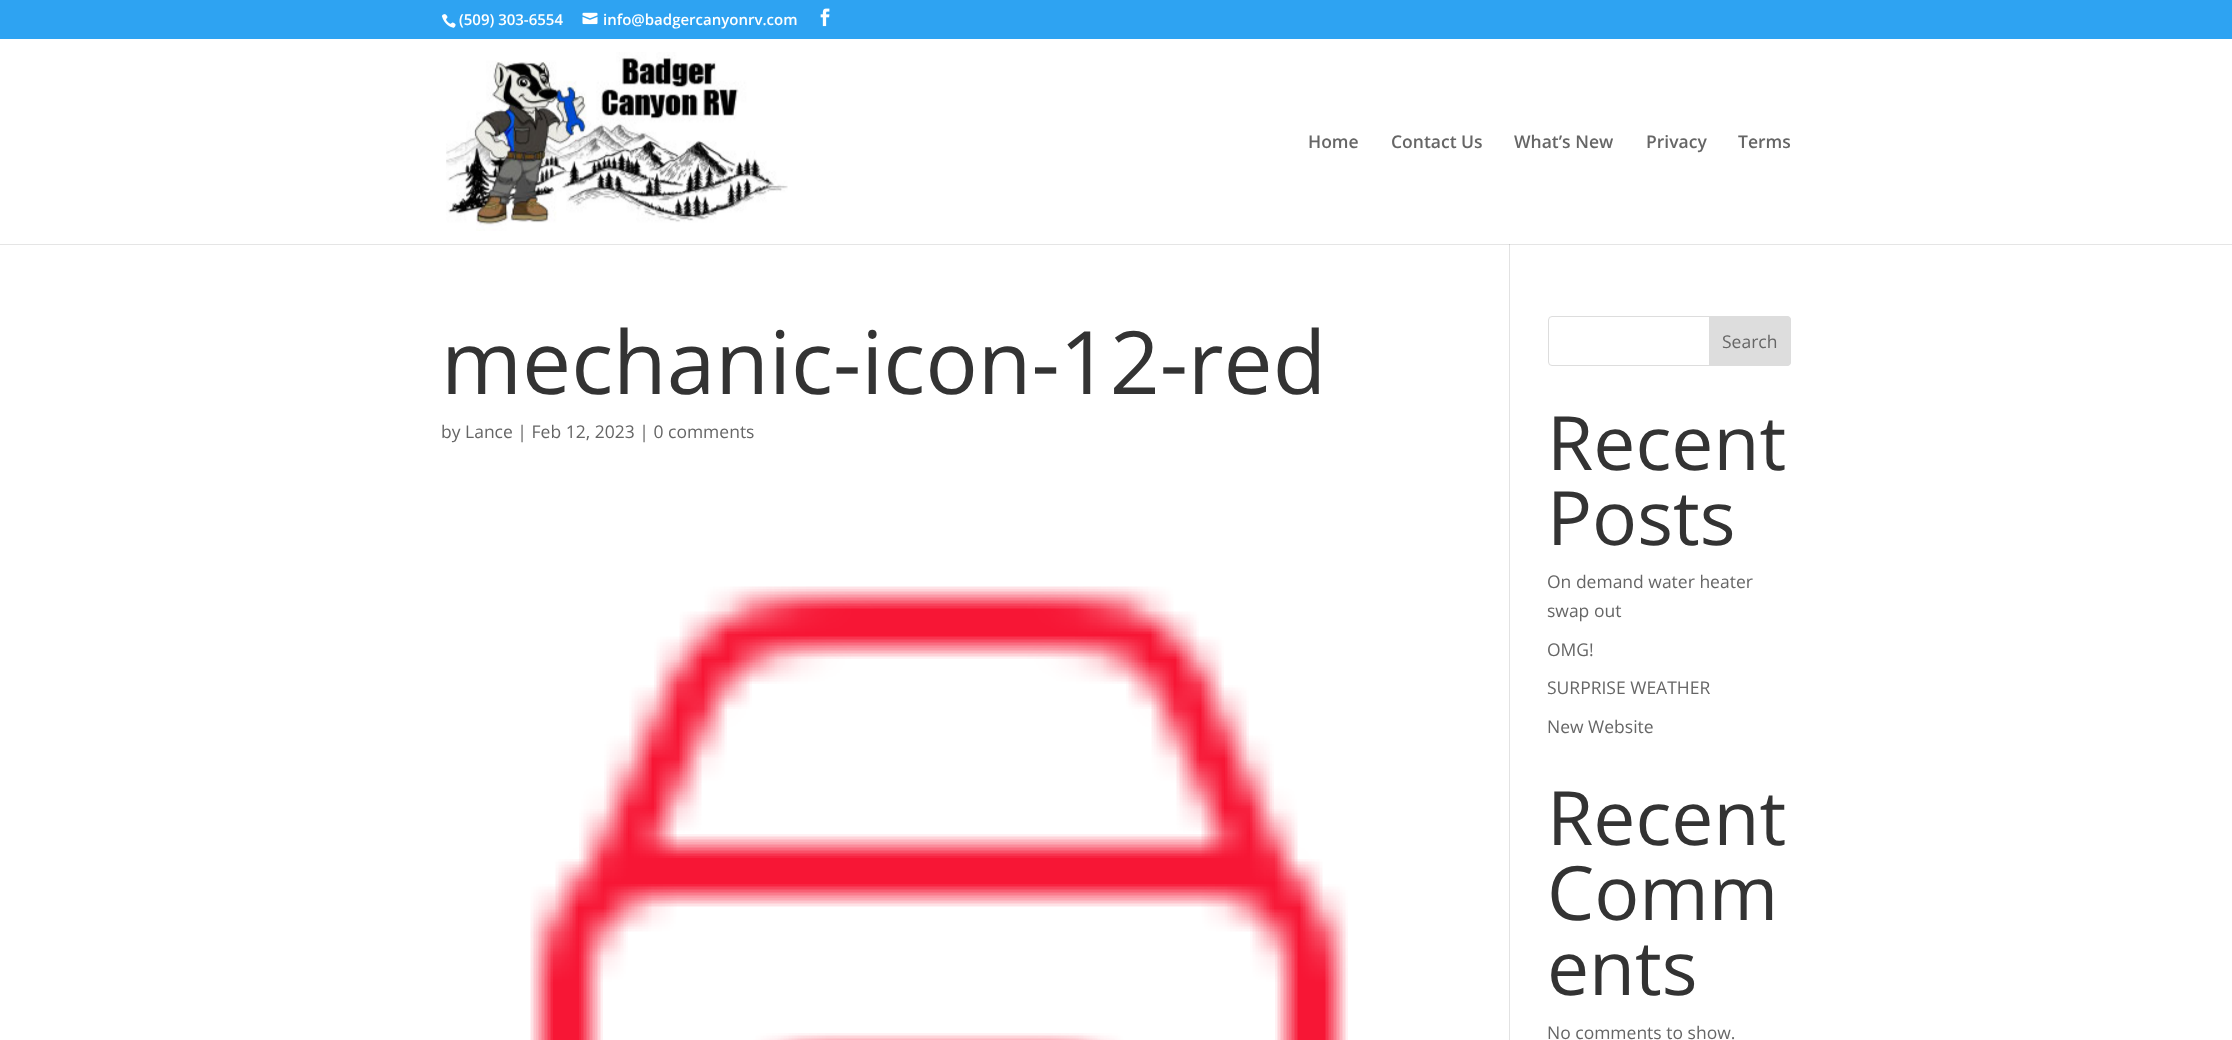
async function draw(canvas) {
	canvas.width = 2232;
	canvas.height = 1040;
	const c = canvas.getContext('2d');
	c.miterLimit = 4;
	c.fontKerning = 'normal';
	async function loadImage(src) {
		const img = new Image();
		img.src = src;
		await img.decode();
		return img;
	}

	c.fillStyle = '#fff';
	c.fillRect(0, 0, 2232, 1040);
	c.fillStyle = '#2ea3f2';
	c.fillRect(0, 0, 2232, 39);
	c.drawImage(await loadImage('img1.png'), 441, 14, 15, 14);
	c.font = '600 15px Open Sans';
	c.fillStyle = '#fff';
	c.fillText('(509) 303-6554', 459, 25);
	c.drawImage(await loadImage('img2.png'), 582, 12, 16, 13);
	c.fillText('info@badgercanyonrv.com', 603, 25);
	c.drawImage(await loadImage('img3.png'), 820, 8, 10, 19);
	c.fillStyle = '#e2e2e2';
	c.fillRect(1509, 244, 1, 796);
	c.fillStyle = '#0000001a';
	c.beginPath();
	c.moveTo(0, 244);
	c.lineTo(0, 245);
	c.lineTo(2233, 245);
	c.lineTo(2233, 40);
	c.lineTo(2232, 40);
	c.lineTo(2232, 244);
	c.closePath();
	c.fill();
	c.drawImage(await loadImage('img4.png'), 446, 52, 342, 179);
	c.font = '600 17.5px Open Sans';
	c.fillStyle = '#666';
	for (const [text, x, y] of [
		['Home', 1308, 148],
		['Contact Us', 1391, 148],
		['What’s New', 1514, 148],
		['Privacy', 1646, 148],
		['Terms', 1738, 148],
	]) {
		c.fillText(text, x, y);
	}
	c.font = '87.5px Open Sans';
	c.fillStyle = '#333';
	c.fillText('mechanic-icon-12-red', 441, 394);
	c.font = '17.5px Open Sans';
	c.fillStyle = '#666';
	c.fillText('by Lance | Feb 12, 2023 | 0 comments', 441, 438);
	c.drawImage(await loadImage('img5.png'), 530, 586, 818, 454);
	c.beginPath();
	c.roundRect(1548.5, 316.5, 242, 49, 3.5);
	c.strokeStyle = '#ddd';
	c.stroke();
	c.fillStyle = '#ddd';
	c.beginPath();
	c.roundRect(1709.5, 316.5, 81, 49, [0, 3.5, 3.5, 0]);
	c.fill();
	c.stroke();
	c.fillStyle = '#666';
	c.fillText('Search', 1722, 348);
	c.font = '75px Open Sans';
	c.fillStyle = '#333';
	c.fillText('Recent', 1547, 470);
	c.fillText('Posts', 1547, 545);
	c.font = '17.5px Open Sans';
	c.fillStyle = '#666';
	for (const [text, x, y] of [
		['On demand water heater', 1547, 588],
		['swap out', 1547, 617],
		['OMG!', 1547, 656],
		['SURPRISE WEATHER', 1547, 694],
		['New Website', 1547, 733],
	]) {
		c.fillText(text, x, y);
	}
	c.font = '75px Open Sans';
	c.fillStyle = '#333';
	for (const [text, x, y] of [
		['Recent', 1547, 845],
		['Comm', 1547, 920],
		['ents', 1547, 995],
	]) {
		c.fillText(text, x, y);
	}
	c.font = '17.5px Open Sans';
	c.fillStyle = '#666';
	c.fillText('No comments to show.', 1547, 1039);
}

draw(document.querySelector('canvas'));
